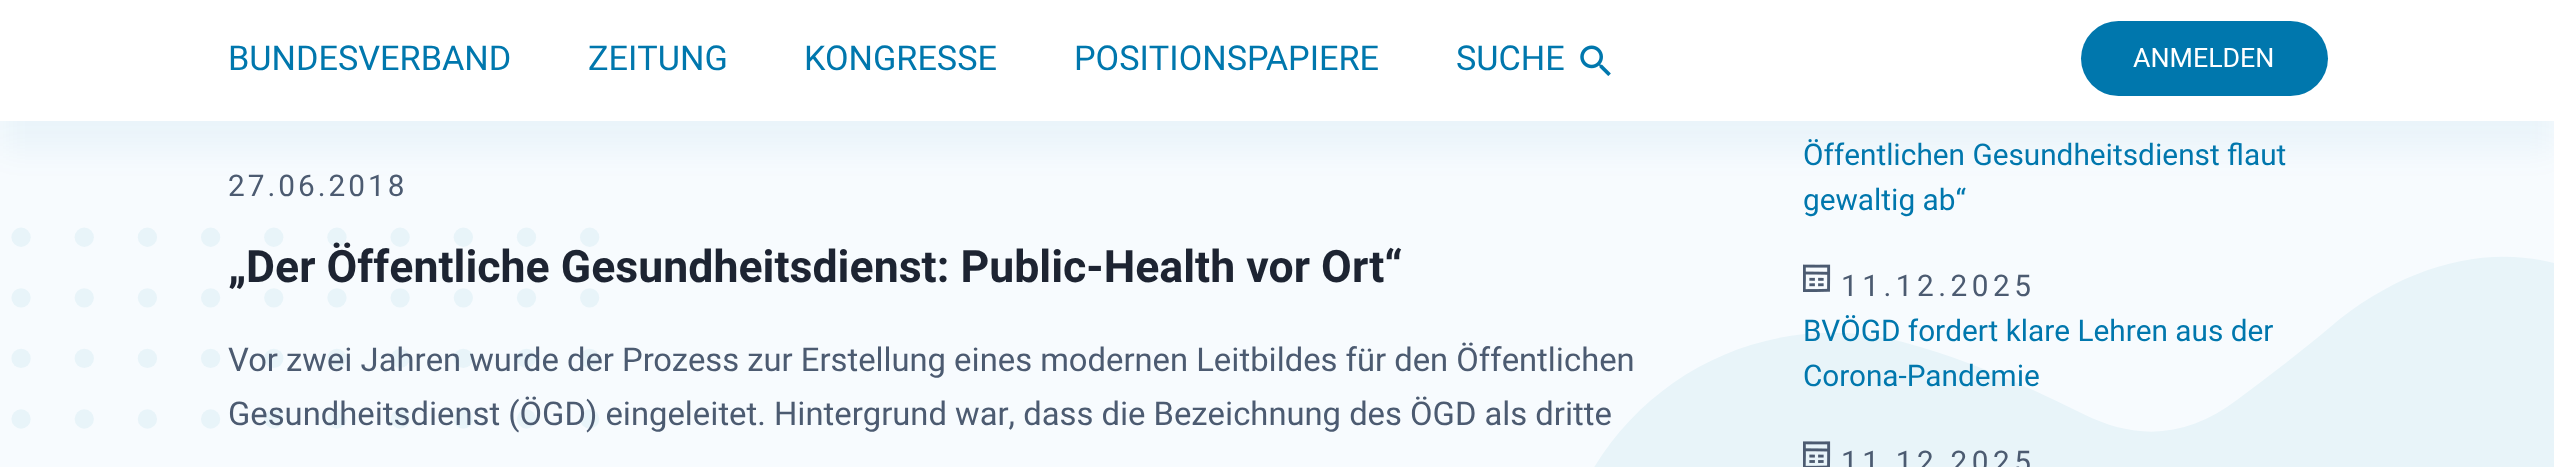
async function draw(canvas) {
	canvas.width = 2554;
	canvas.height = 467;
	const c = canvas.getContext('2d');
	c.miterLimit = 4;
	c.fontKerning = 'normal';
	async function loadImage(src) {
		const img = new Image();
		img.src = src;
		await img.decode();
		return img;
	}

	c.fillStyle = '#f7fbfe';
	c.fillRect(0, 0, 2554, 467);
	c.drawImage(await loadImage('img1.png'), 11, 227, 2543, 240);
	c.fillStyle = '#0077ad0d';
	c.filter = 'blur(15px)';
	c.beginPath();
	c.rect(0, 30, 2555, 121);
	c.fill();
	c.filter = 'none';
	c.fillStyle = '#fff';
	c.fillRect(0, 0, 2554, 121);
	c.font = '34.25px Heebo';
	c.fillStyle = '#0077ad';
	for (const [text, x, y] of [
		['BUNDESVERBAND', 228, 70],
		['ZEITUNG', 588, 70],
		['KONGRESSE', 804, 70],
		['POSITIONSPAPIERE', 1074, 70],
	]) {
		c.fillText(text, x, y);
	}
	c.drawImage(await loadImage('img2.png'), 1580, 45, 31, 31);
	c.fillText('SUCHE', 1456, 70);
	c.beginPath();
	c.roundRect(2081, 21, 247, 75, 37.5);
	c.fill();
	c.font = '26.75px Heebo';
	c.fillStyle = '#fff';
	c.fillText('ANMELDEN', 2133, 67);
	c.letterSpacing = '3px';
	c.font = '29.75px Heebo';
	c.fillStyle = '#4c5b71';
	c.fillText('27.06.2018', 228, 196);
	c.letterSpacing = '0px';
	c.font = 'bold 44.6px Heebo';
	c.fillStyle = '#1d2432';
	c.fillText('„Der Öffentliche Gesundheitsdienst: Public-Health vor Ort“', 228, 282);
	c.font = '32.75px Heebo';
	c.fillStyle = '#4c5b71';
	c.fillText('Vor zwei Jahren wurde der Prozess zur Erstellung eines modernen Leitbildes für den Öffentlichen', 228, 371);
	c.fillText('Gesundheitsdienst (ÖGD) eingeleitet. Hintergrund war, dass die Bezeichnung des ÖGD als dritte', 228, 425);
	c.font = '29.75px Heebo';
	c.fillStyle = '#0077ad';
	c.fillText('Öffentlichen Gesundheitsdienst flaut', 1803, 165);
	c.fillText('gewaltig ab“', 1803, 210);
	c.drawImage(await loadImage('img3.png'), 1803, 264, 28, 28);
	c.letterSpacing = '4.5px';
	c.fillStyle = '#4c5b71';
	c.fillText('11.12.2025', 1841, 296);
	c.letterSpacing = '0px';
	c.fillStyle = '#0077ad';
	c.fillText('BVÖGD fordert klare Lehren aus der', 1803, 341);
	c.fillText('Corona-Pandemie', 1803, 386);
	c.drawImage(await loadImage('img4.png'), 1803, 441, 28, 26);
	c.letterSpacing = '4.5px';
	c.fillStyle = '#4c5b71';
	c.fillText('11.12.2025', 1841, 472);
}

draw(document.querySelector('canvas'));
